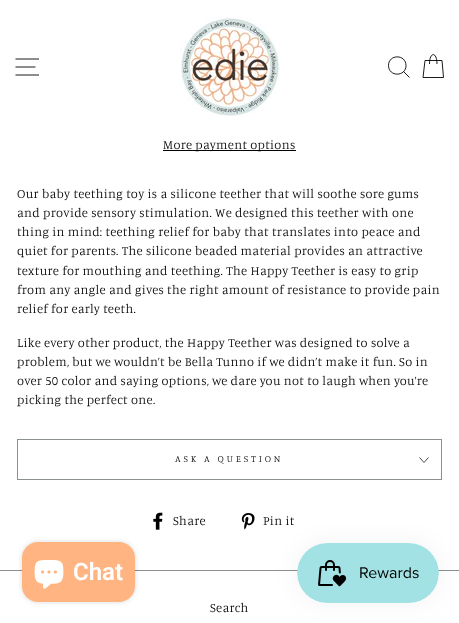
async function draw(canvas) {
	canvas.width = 459;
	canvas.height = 623;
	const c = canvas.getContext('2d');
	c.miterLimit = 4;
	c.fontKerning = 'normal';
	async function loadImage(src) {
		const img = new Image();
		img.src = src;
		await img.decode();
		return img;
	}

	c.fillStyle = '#fff';
	c.fillRect(0, 0, 459, 623);
	c.fillStyle = '#00000033';
	c.filter = 'blur(0.5px)';
	c.beginPath();
	c.rect(0, 0, 459, 134);
	c.fill();
	c.filter = 'none';
	c.fillStyle = '#fff';
	c.fillRect(0, 0, 459, 134);
	c.beginPath();
	c.moveTo(15.5, 59);
	c.lineTo(39, 59);
	c.moveTo(15.5, 67);
	c.lineTo(35.5, 67);
	c.moveTo(15.5, 75);
	c.lineTo(39, 75);
	c.strokeStyle = '#000';
	c.lineWidth = 0.9;
	c.stroke();
	c.drawImage(await loadImage('img1.png'), 180, 17, 99, 99);
	c.beginPath();
	c.moveTo(406, 65.5);
	c.bezierCurveTo(406, 77, 388.5, 77, 388.5, 65.5);
	c.bezierCurveTo(388.5, 54, 406, 54, 406, 65.5);
	c.closePath();
	c.moveTo(409.5, 77.5);
	c.lineTo(403.5, 71.5);
	c.moveTo(429.5, 64);
	c.bezierCurveTo(429.5, 51.5, 437, 51.5, 437, 64);
	c.moveTo(425, 60.5);
	c.lineTo(442, 60.5);
	c.lineTo(443.5, 77.5);
	c.lineTo(423, 77.5);
	c.closePath();
	c.stroke();
	c.fillStyle = '#000';
	c.fillRect(163, 150, 133, 1);
	c.letterSpacing = '0.32px';
	c.font = '300 12.75px Manuale';
	for (const [text, x, y] of [
		['More payment options', 163, 149],
		['Our baby teething toy is a silicone teether that will soothe sore gums', 17, 198],
		['and provide sensory stimulation. We designed this teether with one', 17, 217],
		['thing in mind: teething relief for baby that translates into peace and', 17, 236],
		['quiet for parents. The silicone beaded material provides an attractive', 17, 255],
		['texture for mouthing and teething. The Happy Teether is easy to grip', 17, 275],
		['from any angle and gives the right amount of resistance to provide pain', 17, 294],
		['relief for early teeth.', 17, 313],
		['Like every other product, the Happy Teether was designed to solve a', 17, 347],
		['problem, but we wouldn’t be Bella Tunno if we didn’t make it fun. So in', 17, 366],
		['over 50 color and saying options, we dare you not to laugh when you’re', 17, 385],
		['picking the perfect one.', 17, 404],
	]) {
		c.fillText(text, x, y);
	}
	for (const [x, y, w, h, color] of [
		[17, 479, 425, 1, '#8a9090'],
		[17, 439, 425, 1, '#8a9090'],
		[441, 439, 1, 40, '#8a9090'],
		[17, 439, 1, 40, '#8a9090'],
	]) {
		c.fillStyle = color;
		c.fillRect(x, y, w, h);
	}
	c.letterSpacing = '2.9px';
	c.font = '300 9.5px Manuale';
	c.fillStyle = '#000';
	c.fillText('ASK A QUESTION', 175, 462);
	c.beginPath();
	c.moveTo(419.5, 457.5);
	c.lineTo(424, 462.5);
	c.lineTo(428.5, 457.5);
	c.lineWidth = 0.7;
	c.stroke();
	c.drawImage(await loadImage('img2.png'), 153, 512, 10, 18);
	c.letterSpacing = '0.32px';
	c.font = '300 12.75px Manuale';
	c.fillText('Share', 173, 525);
	c.drawImage(await loadImage('img3.png'), 241, 513, 14, 17);
	c.fillText('Pin it', 263, 525);
	c.fillStyle = '#8a9090';
	c.fillRect(0, 570, 459, 1);
	c.fillStyle = '#000';
	c.fillText('Search', 210, 612);
	c.fillStyle = '#00000026';
	c.filter = 'blur(2.5px)';
	c.beginPath();
	c.roundRect(22, 542, 113, 60, 16);
	c.fill();
	c.filter = 'none';
	c.fillStyle = '#ffb481';
	c.beginPath();
	c.roundRect(22, 542, 113, 60, 16);
	c.fill();
	c.drawImage(await loadImage('img4.png'), 34, 560, 30, 29);
	c.letterSpacing = '0px';
	c.font = '600 24px Roboto';
	c.fillStyle = '#fff';
	c.fillText('Chat', 73, 580);
	c.fillStyle = '#0000000d';
	c.filter = 'blur(12.5px)';
	c.beginPath();
	c.roundRect(297, 543, 142, 60, 30);
	c.fill();
	c.filter = 'none';
	c.drawImage(await loadImage('img5.png'), 297, 543, 142, 60);
}

draw(document.querySelector('canvas'));
